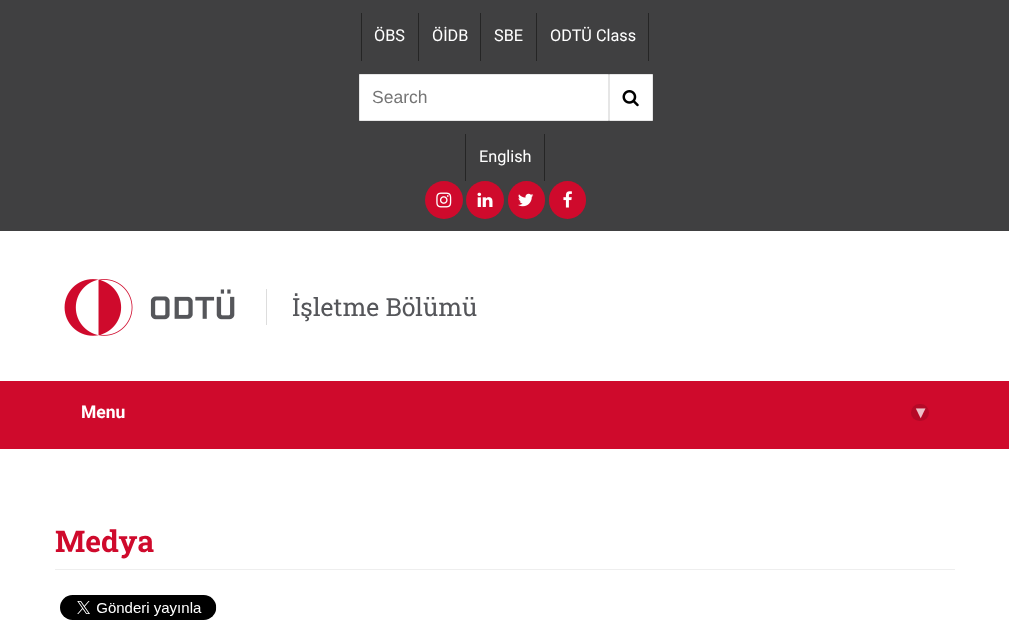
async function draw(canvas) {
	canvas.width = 1009;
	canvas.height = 634;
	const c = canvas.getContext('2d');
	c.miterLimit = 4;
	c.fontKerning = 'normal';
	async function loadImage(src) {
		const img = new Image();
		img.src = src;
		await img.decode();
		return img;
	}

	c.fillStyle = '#fff';
	c.fillRect(0, 0, 1009, 634);
	for (const [x, y, w, h, color] of [
		[0, 0, 1009, 231, '#404041'],
		[418, 13, 1, 48, '#252525'],
		[361, 13, 1, 48, '#252525'],
	]) {
		c.fillStyle = color;
		c.fillRect(x, y, w, h);
	}
	c.font = '16.25px Roboto';
	c.fillStyle = '#fff';
	c.fillText('ÖBS', 374, 41);
	c.fillStyle = '#252525';
	c.fillRect(480, 13, 1, 48);
	c.fillStyle = '#fff';
	c.fillText('ÖİDB', 432, 41);
	c.fillStyle = '#252525';
	c.fillRect(536, 13, 1, 48);
	c.fillStyle = '#fff';
	c.fillText('SBE', 494, 41);
	c.fillStyle = '#252525';
	c.fillRect(648, 13, 1, 48);
	c.fillStyle = '#fff';
	c.fillText('ODTÜ Class', 550, 41);
	c.beginPath();
	c.rect(359.5, 74.5, 249, 46);
	c.fill();
	c.strokeStyle = '#e6e6e6';
	c.stroke();
	c.font = '17.5px Liberation Sans';
	c.fillStyle = '#757575';
	c.fillText('Search', 372, 103);
	c.fillStyle = '#fff';
	c.beginPath();
	c.rect(609.5, 74.5, 43, 46);
	c.fill();
	c.stroke();
	c.drawImage(await loadImage('img1.png'), 622, 90, 17, 17);
	c.fillStyle = '#252525';
	c.fillRect(544, 134, 1, 47);
	c.fillRect(465, 134, 1, 47);
	c.font = '16.25px Roboto';
	c.fillStyle = '#fff';
	c.fillText('English', 479, 162);
	c.fillStyle = '#cf0a2c';
	c.beginPath();
	c.arc(444, 200, 19, 0, 2 * Math.PI);
	c.fill();
	c.drawImage(await loadImage('img2.png'), 436, 192, 16, 16);
	c.beginPath();
	c.arc(485, 200, 19, 0, 2 * Math.PI);
	c.fill();
	c.drawImage(await loadImage('img3.png'), 477, 192, 16, 15);
	c.beginPath();
	c.roundRect(508, 181, 37, 38, 18.5);
	c.fill();
	c.drawImage(await loadImage('img4.png'), 518, 193, 16, 14);
	c.beginPath();
	c.roundRect(549, 181, 37, 38, 18.5);
	c.fill();
	c.drawImage(await loadImage('img5.png'), 563, 191, 9, 17);
	c.drawImage(await loadImage('img6.png'), 64, 279, 171, 57);
	c.fillStyle = '#ddd';
	c.fillRect(266, 289, 1, 36);
	c.font = '25px Roboto Slab';
	c.fillStyle = '#55565a';
	c.fillText('İşletme Bölümü', 292, 316);
	c.fillStyle = '#cf0a2c';
	c.fillRect(0, 381, 1009, 68);
	c.font = 'bold 17.5px Roboto';
	c.fillStyle = '#fff';
	c.fillText('Menu', 81, 418);
	c.fillStyle = '#b50927';
	c.beginPath();
	c.roundRect(911, 404, 18, 17, 8.5);
	c.fill();
	c.font = 'bold 17.5px DejaVu Sans';
	c.fillStyle = '#edc2c9';
	c.fillText('▾', 916, 418);
	c.fillStyle = '#eee';
	c.fillRect(55, 569, 900, 1);
	c.font = 'bold 30px Roboto Slab';
	c.fillStyle = '#cf0a2c';
	c.fillText('Medya', 55, 552);
	c.drawImage(await loadImage('img7.png'), 60, 595, 157, 25);
}

draw(document.querySelector('canvas'));
